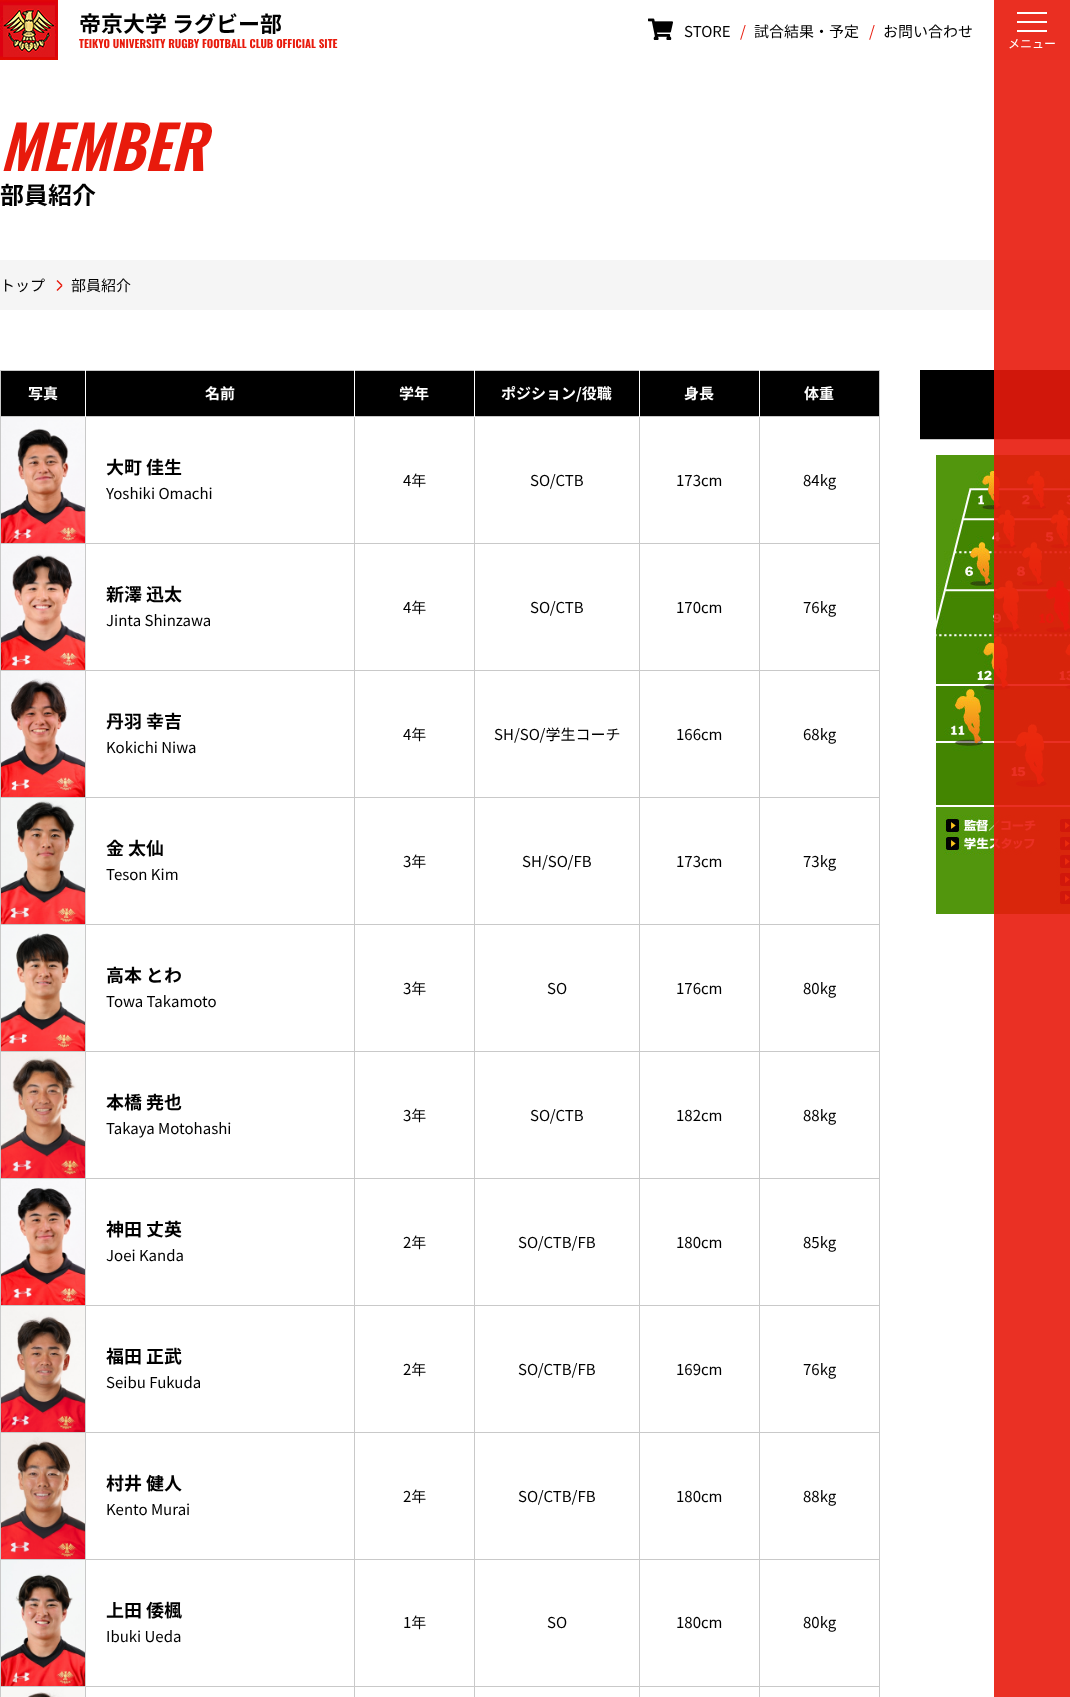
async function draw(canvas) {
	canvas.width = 1070;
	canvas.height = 1697;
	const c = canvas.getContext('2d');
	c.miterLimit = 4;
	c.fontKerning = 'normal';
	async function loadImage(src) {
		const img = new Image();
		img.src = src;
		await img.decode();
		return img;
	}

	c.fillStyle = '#fff';
	c.fillRect(0, 0, 1070, 1697);
	c.drawImage(await loadImage('img1.png'), 0, 0, 58, 60);
	c.font = 'bold 22px Noto Sans JP';
	c.fillStyle = '#000';
	c.fillText('帝京大学 ラグビー部', 79, 32);
	c.font = 'bold 11px Oswald';
	c.fillStyle = '#e81a0c';
	c.fillText('TEIKYO UNIVERSITY RUGBY FOOTBALL CLUB OFFICIAL SITE', 79, 48);
	c.drawImage(await loadImage('img2.png'), 648, 18, 25, 22);
	c.font = '15px Noto Sans JP';
	c.fillStyle = '#000';
	c.fillText('STORE', 684, 37);
	c.fillStyle = '#e81a0c';
	c.fillText('/', 740, 37);
	c.fillStyle = '#000';
	c.fillText('試合結果・予定', 754, 37);
	c.fillStyle = '#e81a0c';
	c.fillText('/', 869, 37);
	c.fillStyle = '#000';
	c.fillText('お問い合わせ', 883, 37);
	for (const [x, y, w, h, color] of [
		[994, 0, 76, 60, '#ea2f22'],
		[1017, 12, 30, 2, '#fff'],
		[1017, 21, 30, 2, '#fff'],
		[1017, 30, 30, 2, '#fff'],
	]) {
		c.fillStyle = color;
		c.fillRect(x, y, w, h);
	}
	c.font = '12px Noto Sans JP';
	c.fillText('メニュー', 1008, 48);
	c.font = 'italic 600 60px Oswald';
	c.fillStyle = '#e81a0c';
	c.fillText('MEMBER', 0, 171);
	c.font = 'bold 24px Noto Sans JP';
	c.fillStyle = '#000';
	c.fillText('部員紹介', 0, 204);
	c.fillStyle = '#f5f5f5';
	c.fillRect(0, 260, 1070, 50);
	c.font = '15px Noto Sans JP';
	c.fillStyle = '#000';
	c.fillText('トップ', 0, 291);
	c.fillStyle = '#e81a0c';
	c.beginPath();
	c.moveTo(57.5, 280);
	c.lineTo(62.5, 285);
	c.lineTo(61.5, 286);
	c.lineTo(56.5, 281);
	c.closePath();
	c.fill();
	c.beginPath();
	c.moveTo(56.5, 290);
	c.lineTo(61.5, 285);
	c.lineTo(62.5, 286);
	c.lineTo(57.5, 291);
	c.closePath();
	c.fill();
	c.fillStyle = '#000';
	c.fillText('部員紹介', 71, 291);
	for (const [x, y, w, h, color] of [
		[1, 371, 878, 45, '#000'],
		[0, 370, 880, 1, '#c9c9c9'],
		[0, 416, 880, 1, '#c9c9c9'],
		[0, 543, 880, 1, '#c9c9c9'],
		[0, 670, 880, 1, '#c9c9c9'],
		[0, 797, 880, 1, '#c9c9c9'],
		[0, 924, 880, 1, '#c9c9c9'],
		[0, 1051, 880, 1, '#c9c9c9'],
		[0, 1178, 880, 1, '#c9c9c9'],
		[0, 1305, 880, 1, '#c9c9c9'],
		[0, 1432, 880, 1, '#c9c9c9'],
		[0, 1559, 880, 1, '#c9c9c9'],
		[0, 1686, 880, 1, '#c9c9c9'],
		[879, 1686, 1, 11, '#c9c9c9'],
		[879, 1559, 1, 128, '#c9c9c9'],
		[879, 1432, 1, 128, '#c9c9c9'],
		[879, 1305, 1, 128, '#c9c9c9'],
		[879, 1178, 1, 128, '#c9c9c9'],
		[879, 1051, 1, 128, '#c9c9c9'],
		[879, 924, 1, 128, '#c9c9c9'],
		[879, 797, 1, 128, '#c9c9c9'],
		[879, 670, 1, 128, '#c9c9c9'],
		[879, 543, 1, 128, '#c9c9c9'],
		[879, 416, 1, 128, '#c9c9c9'],
		[879, 370, 1, 47, '#c9c9c9'],
		[0, 1686, 1, 11, '#c9c9c9'],
		[0, 1559, 1, 128, '#c9c9c9'],
		[0, 1432, 1, 128, '#c9c9c9'],
		[0, 1305, 1, 128, '#c9c9c9'],
		[0, 1178, 1, 128, '#c9c9c9'],
		[0, 1051, 1, 128, '#c9c9c9'],
		[0, 924, 1, 128, '#c9c9c9'],
		[0, 797, 1, 128, '#c9c9c9'],
		[0, 670, 1, 128, '#c9c9c9'],
		[0, 543, 1, 128, '#c9c9c9'],
		[0, 416, 1, 128, '#c9c9c9'],
		[0, 370, 1, 47, '#c9c9c9'],
		[85, 416, 1, 1281, '#c9c9c9'],
		[85, 370, 1, 47, '#fff'],
	]) {
		c.fillStyle = color;
		c.fillRect(x, y, w, h);
	}
	c.font = 'bold 15px Noto Sans JP';
	c.fillText('写真', 28, 399);
	c.fillStyle = '#c9c9c9';
	c.fillRect(354, 416, 1, 1281);
	c.fillStyle = '#fff';
	c.fillRect(354, 370, 1, 47);
	c.fillText('名前', 205, 399);
	c.fillStyle = '#c9c9c9';
	c.fillRect(474, 416, 1, 1281);
	c.fillStyle = '#fff';
	c.fillRect(474, 370, 1, 47);
	c.fillText('学年', 399, 399);
	c.fillStyle = '#c9c9c9';
	c.fillRect(639, 416, 1, 1281);
	c.fillStyle = '#fff';
	c.fillRect(639, 370, 1, 47);
	c.fillText('ポジション/役職', 501, 399);
	c.fillStyle = '#c9c9c9';
	c.fillRect(759, 416, 1, 1281);
	c.fillStyle = '#fff';
	c.fillRect(759, 370, 1, 47);
	c.fillText('身長', 684, 399);
	c.fillText('体重', 804, 399);
	c.drawImage(await loadImage('img3.png'), 1, 1687, 84, 10);
	c.drawImage(await loadImage('img4.png'), 1, 417, 84, 126);
	c.font = 'bold 18px Noto Sans JP';
	c.fillStyle = '#000';
	c.fillText('大町 佳生', 106, 474);
	c.font = '15px Noto Sans JP';
	for (const [text, x, y] of [
		['Yoshiki Omachi', 106, 499],
		['4年', 403, 486],
		['SO/CTB', 530, 486],
		['173cm', 676, 486],
		['84kg', 803, 486],
	]) {
		c.fillText(text, x, y);
	}
	c.drawImage(await loadImage('img5.png'), 1, 544, 84, 126);
	c.font = 'bold 18px Noto Sans JP';
	c.fillText('新澤 迅太', 106, 601);
	c.font = '15px Noto Sans JP';
	for (const [text, x, y] of [
		['Jinta Shinzawa', 106, 626],
		['4年', 403, 613],
		['SO/CTB', 530, 613],
		['170cm', 676, 613],
		['76kg', 803, 613],
	]) {
		c.fillText(text, x, y);
	}
	c.drawImage(await loadImage('img6.png'), 1, 671, 84, 126);
	c.font = 'bold 18px Noto Sans JP';
	c.fillText('丹羽 幸吉', 106, 728);
	c.font = '15px Noto Sans JP';
	for (const [text, x, y] of [
		['Kokichi Niwa', 106, 753],
		['4年', 403, 740],
		['SH/SO/学生コーチ', 494, 740],
		['166cm', 676, 740],
		['68kg', 803, 740],
	]) {
		c.fillText(text, x, y);
	}
	c.drawImage(await loadImage('img7.png'), 1, 798, 84, 126);
	c.font = 'bold 18px Noto Sans JP';
	c.fillText('金 太仙', 106, 855);
	c.font = '15px Noto Sans JP';
	for (const [text, x, y] of [
		['Teson Kim', 106, 880],
		['3年', 403, 867],
		['SH/SO/FB', 522, 867],
		['173cm', 676, 867],
		['73kg', 803, 867],
	]) {
		c.fillText(text, x, y);
	}
	c.drawImage(await loadImage('img8.png'), 1, 925, 84, 126);
	c.font = 'bold 18px Noto Sans JP';
	c.fillText('高本 とわ', 106, 982);
	c.font = '15px Noto Sans JP';
	for (const [text, x, y] of [
		['Towa Takamoto', 106, 1007],
		['3年', 403, 994],
		['SO', 547, 994],
		['176cm', 676, 994],
		['80kg', 803, 994],
	]) {
		c.fillText(text, x, y);
	}
	c.drawImage(await loadImage('img9.png'), 1, 1052, 84, 126);
	c.font = 'bold 18px Noto Sans JP';
	c.fillText('本橋 尭也', 106, 1109);
	c.font = '15px Noto Sans JP';
	for (const [text, x, y] of [
		['Takaya Motohashi', 106, 1134],
		['3年', 403, 1121],
		['SO/CTB', 530, 1121],
		['182cm', 676, 1121],
		['88kg', 803, 1121],
	]) {
		c.fillText(text, x, y);
	}
	c.drawImage(await loadImage('img10.png'), 1, 1179, 84, 126);
	c.font = 'bold 18px Noto Sans JP';
	c.fillText('神田 丈英', 106, 1236);
	c.font = '15px Noto Sans JP';
	for (const [text, x, y] of [
		['Joei Kanda', 106, 1261],
		['2年', 403, 1248],
		['SO/CTB/FB', 518, 1248],
		['180cm', 676, 1248],
		['85kg', 803, 1248],
	]) {
		c.fillText(text, x, y);
	}
	c.drawImage(await loadImage('img11.png'), 1, 1306, 84, 126);
	c.font = 'bold 18px Noto Sans JP';
	c.fillText('福田 正武', 106, 1363);
	c.font = '15px Noto Sans JP';
	for (const [text, x, y] of [
		['Seibu Fukuda', 106, 1388],
		['2年', 403, 1375],
		['SO/CTB/FB', 518, 1375],
		['169cm', 676, 1375],
		['76kg', 803, 1375],
	]) {
		c.fillText(text, x, y);
	}
	c.drawImage(await loadImage('img12.png'), 1, 1433, 84, 126);
	c.font = 'bold 18px Noto Sans JP';
	c.fillText('村井 健人', 106, 1490);
	c.font = '15px Noto Sans JP';
	for (const [text, x, y] of [
		['Kento Murai', 106, 1515],
		['2年', 403, 1502],
		['SO/CTB/FB', 518, 1502],
		['180cm', 676, 1502],
		['88kg', 803, 1502],
	]) {
		c.fillText(text, x, y);
	}
	c.drawImage(await loadImage('img13.png'), 1, 1560, 84, 126);
	c.font = 'bold 18px Noto Sans JP';
	c.fillText('上田 倭楓', 106, 1617);
	c.font = '15px Noto Sans JP';
	for (const [text, x, y] of [
		['Ibuki Ueda', 106, 1642],
		['1年', 403, 1628],
		['SO', 547, 1628],
		['180cm', 676, 1628],
		['80kg', 803, 1628],
	]) {
		c.fillText(text, x, y);
	}
	c.fillRect(920, 370, 150, 69);
	c.fillStyle = '#c9c9c9';
	c.fillRect(920, 439, 150, 1);
	c.drawImage(await loadImage('img14.png'), 936, 455, 134, 459);
	for (const [x, y, w, h, color] of [
		[1062, 60, 8, 1637, '#e81a0ce6'],
		[994, 60, 8, 1637, '#e81a0ce6'],
		[1002, 60, 60, 1637, '#e81a0ce6'],
	]) {
		c.fillStyle = color;
		c.fillRect(x, y, w, h);
	}
}

draw(document.querySelector('canvas'));
